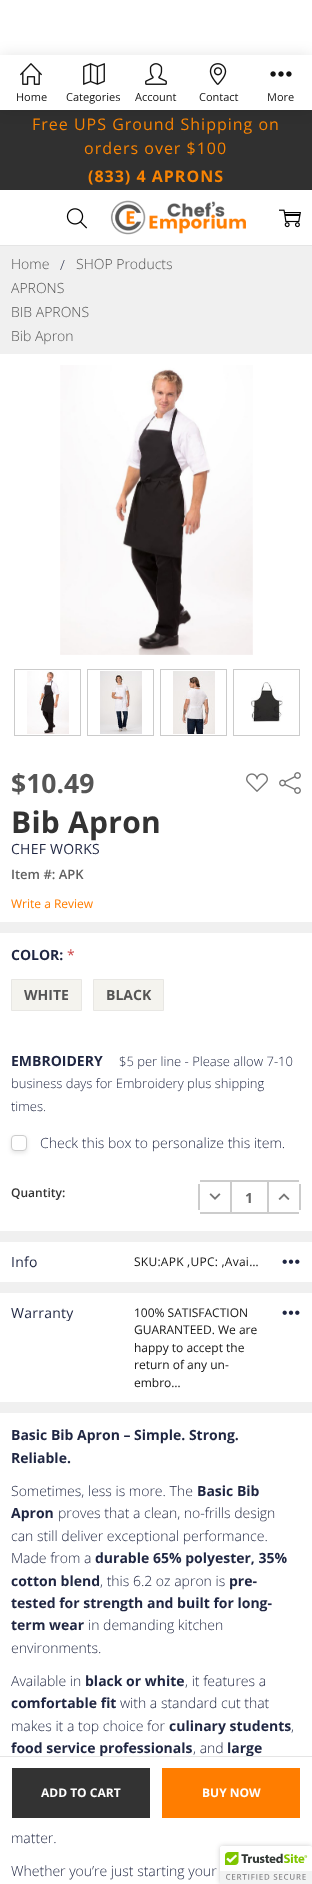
async function draw(canvas) {
	canvas.width = 312;
	canvas.height = 1884;
	const c = canvas.getContext('2d');
	c.miterLimit = 4;
	c.fontKerning = 'normal';
	async function loadImage(src) {
		const img = new Image();
		img.src = src;
		await img.decode();
		return img;
	}

	c.fillStyle = '#fff';
	c.fillRect(0, 0, 312, 1884);
	c.fillStyle = '#303030';
	c.fillRect(0, 110, 312, 80);
	c.save();
	c.beginPath();
	c.moveTo(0, 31);
	c.lineTo(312, 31);
	c.lineTo(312, 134);
	c.lineTo(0, 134);
	c.closePath();
	c.moveTo(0, 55);
	c.lineTo(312, 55);
	c.lineTo(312, 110);
	c.lineTo(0, 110);
	c.closePath();
	c.clip('evenodd');
	c.fillStyle = '#0000001a';
	c.filter = 'blur(7.5px)';
	c.beginPath();
	c.rect(0, 55, 312, 55);
	c.fill();
	c.filter = 'none';
	c.restore();
	c.drawImage(await loadImage('img1.png'), 20, 63, 22, 22);
	c.font = '11px Open Sans';
	c.fillStyle = '#131313';
	c.fillText('Home', 16, 101);
	c.drawImage(await loadImage('img2.png'), 83, 63, 22, 22);
	c.fillText('Categories', 66, 101);
	c.drawImage(await loadImage('img3.png'), 145, 63, 22, 22);
	c.fillText('Account', 135, 101);
	c.drawImage(await loadImage('img4.png'), 209, 63, 18, 22);
	c.fillText('Contact', 199, 101);
	c.drawImage(await loadImage('img5.png'), 270, 71, 22, 6);
	c.fillText('More', 267, 101);
	c.letterSpacing = '1px';
	c.font = '16px Open Sans';
	c.fillStyle = '#f78303';
	c.fillText('Free UPS Ground Shipping on', 32, 130);
	c.fillText('orders over $100', 84, 154);
	c.font = 'bold 16px Open Sans';
	c.fillText('(833) 4 APRONS', 88, 182);
	c.fillStyle = '#e5e5e5';
	c.fillRect(0, 245, 312, 1);
	c.drawImage(await loadImage('img6.png'), 110, 200, 136, 35);
	c.drawImage(await loadImage('img7.png'), 66, 208, 22, 21);
	c.drawImage(await loadImage('img8.png'), 279, 209, 22, 19);
	c.fillStyle = '#f0f0f0';
	c.fillRect(0, 246, 312, 108);
	c.letterSpacing = '0px';
	c.font = '300 14px Open Sans';
	c.fillStyle = '#555';
	c.fillText('Home', 11, 269);
	c.fillStyle = '#1f2642';
	c.fillText('/', 60, 270);
	c.fillStyle = '#555';
	for (const [text, x, y] of [
		['SHOP Products', 76, 269],
		['APRONS', 11, 293],
		['BIB APRONS', 11, 317],
		['Bib Apron', 11, 341],
	]) {
		c.fillText(text, x, y);
	}
	c.fillStyle = '#f0f0f0';
	c.fillRect(0, 922, 312, 491);
	c.drawImage(await loadImage('img9.png'), 60, 365, 193, 290);
	c.strokeStyle = '#cbcbcb';
	c.strokeRect(14.5, 669.5, 66, 66);
	c.drawImage(await loadImage('img10.png'), 27, 671, 42, 63);
	c.strokeRect(87.5, 669.5, 66, 66);
	c.drawImage(await loadImage('img11.png'), 100, 671, 42, 63);
	c.strokeRect(160.5, 669.5, 66, 66);
	c.drawImage(await loadImage('img12.png'), 173, 671, 42, 63);
	c.strokeRect(233.5, 669.5, 66, 66);
	c.drawImage(await loadImage('img13.png'), 251, 682, 32, 40);
	c.font = 'bold 26.5px Open Sans';
	c.fillStyle = '#555';
	c.fillText('$10.49', 11, 793);
	c.drawImage(await loadImage('img14.png'), 246, 773, 22, 19);
	c.drawImage(await loadImage('img15.png'), 279, 772, 22, 22);
	c.letterSpacing = '0.25px';
	c.font = 'bold 30px Open Sans';
	c.fillStyle = '#333';
	c.fillText('Bib Apron', 11, 833);
	c.font = '14px Open Sans';
	c.fillStyle = '#1f2642';
	c.fillText('CHEF WORKS', 11, 854);
	c.letterSpacing = '0px';
	c.font = '600 13px Open Sans';
	c.fillStyle = '#606060';
	c.fillText('Item #: APK', 11, 879);
	c.font = '12px Open Sans';
	c.fillStyle = '#ff7d00';
	c.fillText('Write a Review', 11, 908);
	c.fillStyle = '#fff';
	c.fillRect(0, 933, 312, 298);
	c.font = 'bold 14px Open Sans';
	c.fillStyle = '#1f2642';
	c.fillText('COLOR:', 11, 960);
	c.font = '14px Open Sans';
	c.fillStyle = '#cc4749';
	c.fillText('*', 67, 960);
	c.fillStyle = '#f4f3ee';
	c.beginPath();
	c.rect(11.5, 979.5, 70, 31);
	c.fill();
	c.strokeStyle = '#e8e7e4';
	c.stroke();
	c.font = 'bold 14px Open Sans';
	c.fillStyle = '#555';
	c.fillText('WHITE', 24, 1000);
	c.fillStyle = '#f4f3ee';
	c.beginPath();
	c.rect(93.5, 979.5, 70, 31);
	c.fill();
	c.stroke();
	c.fillStyle = '#555';
	c.fillText('BLACK', 106, 1000);
	c.fillStyle = '#1f2642';
	c.fillText('EMBROIDERY', 11, 1066);
	c.font = '300 13px Open Sans';
	for (const [text, x, y] of [
		['$5 per line - Please allow 7-10', 119, 1066],
		['business days for Embroidery plus shipping', 11, 1088],
		['times.', 11, 1111],
	]) {
		c.fillText(text, x, y);
	}
	c.fillStyle = '#0000001a';
	c.filter = 'blur(2px)';
	c.beginPath();
	c.roundRect(11, 1137, 16, 16, 4);
	c.fill();
	c.filter = 'none';
	c.fillStyle = '#fff';
	c.beginPath();
	c.roundRect(11.5, 1135.5, 15, 15, 3.5);
	c.fill();
	c.strokeStyle = '#ccc';
	c.stroke();
	c.font = '300 14px Open Sans';
	c.fillStyle = '#1f2642';
	c.fillText('Check this box to personalize this item.', 40, 1148);
	c.font = '600 12px Open Sans';
	c.fillStyle = '#333';
	c.fillText('Quantity:', 11, 1197);
	for (const [x, y, w, h, color] of [
		[200, 1180, 99, 2, '#ccc'],
		[200, 1212, 99, 2, '#ccc'],
		[230, 1182, 2, 30, '#ccc'],
		[198, 1184, 2, 26, '#ccc'],
	]) {
		c.fillStyle = color;
		c.fillRect(x, y, w, h);
	}
	c.drawImage(await loadImage('img16.png'), 209, 1193, 12, 7);
	c.font = 'bold 14px Open Sans';
	c.fillStyle = '#666';
	c.fillText('1', 245, 1203);
	c.fillStyle = '#ccc';
	c.fillRect(299, 1184, 2, 26);
	c.fillRect(267, 1182, 2, 30);
	c.drawImage(await loadImage('img17.png'), 278, 1193, 12, 7);
	c.fillStyle = '#1f2642';
	c.fillText('food service professionals', 11, 1753);
	c.fillText('large', 227, 1753);
	c.fillStyle = '#e5e5e5';
	c.fillRect(0, 1756, 312, 1);
	c.fillStyle = '#333';
	c.fillRect(12, 1768, 138, 50);
	c.font = 'bold 12px Open Sans';
	c.fillStyle = '#fff';
	c.fillText('ADD TO CART', 41, 1797);
	c.fillStyle = '#ff7d00';
	c.fillRect(162, 1768, 138, 50);
	c.fillStyle = '#fff';
	c.fillText('BUY NOW', 202, 1797);
	c.fillRect(0, 1242, 312, 40);
	c.letterSpacing = '0.25px';
	c.font = '14px Open Sans';
	c.fillStyle = '#1f2642';
	c.fillText('Info', 11, 1267);
	c.font = '12px Open Sans';
	c.fillStyle = '#131313';
	c.fillText('SKU:APK ,UPC: ,Avai…', 134, 1266);
	c.drawImage(await loadImage('img18.png'), 282, 1259, 18, 5);
	c.fillStyle = '#fff';
	c.fillRect(0, 1293, 312, 109);
	c.save();
	c.beginPath();
	c.rect(11, 1304, 100, 17);
	c.clip();
	c.font = '14px Open Sans';
	c.fillStyle = '#1f2642';
	c.fillText('Warranty', 11, 1318);
	c.restore();
	c.letterSpacing = '0px';
	c.fillStyle = '#131313';
	for (const [text, x, y] of [
		['100% SATISFACTION', 134, 1317],
		['GUARANTEED. We are', 134, 1334],
		['happy to accept the', 134, 1352],
		['return of any un-', 134, 1369],
		['embro…', 134, 1387],
	]) {
		c.fillText(text, x, y);
	}
	c.drawImage(await loadImage('img18.png'), 282, 1310, 18, 5);
	c.font = 'bold 14px Open Sans';
	c.fillStyle = '#1f2642';
	c.fillText('Basic Bib Apron – Simple. Strong.', 11, 1440);
	c.fillText('Reliable.', 11, 1463);
	c.font = '300 14px Open Sans';
	c.fillText('Sometimes, less is more. The', 11, 1496);
	c.font = 'bold 14px Open Sans';
	c.fillText('Basic Bib', 197, 1496);
	c.fillText('Apron', 11, 1518);
	c.font = '300 14px Open Sans';
	for (const [text, x, y] of [
		['proves that a clean, no-frills design', 58, 1518],
		['can still deliver exceptional performance.', 11, 1541],
		['Made from a', 11, 1563],
	]) {
		c.fillText(text, x, y);
	}
	c.font = 'bold 14px Open Sans';
	c.fillText('durable 65% polyester, 35%', 95, 1563);
	c.fillText('cotton blend', 11, 1586);
	c.font = '300 14px Open Sans';
	c.fillText(', this 6.2 oz apron is', 100, 1586);
	c.font = 'bold 14px Open Sans';
	for (const [text, x, y] of [
		['pre-', 229, 1586],
		['tested for strength and built for long-', 11, 1608],
		['term wear', 11, 1630],
	]) {
		c.fillText(text, x, y);
	}
	c.font = '300 14px Open Sans';
	for (const [text, x, y] of [
		['in demanding kitchen', 88, 1630],
		['environments.', 11, 1653],
		['Available in', 11, 1686],
	]) {
		c.fillText(text, x, y);
	}
	c.font = 'bold 14px Open Sans';
	c.fillText('black or white', 85, 1686);
	c.font = '300 14px Open Sans';
	c.fillText(', it features a', 185, 1686);
	c.font = 'bold 14px Open Sans';
	c.fillText('comfortable fit', 11, 1708);
	c.font = '300 14px Open Sans';
	c.fillText('with a standard cut that', 120, 1708);
	c.fillText('makes it a top choice for', 11, 1731);
	c.font = 'bold 14px Open Sans';
	c.fillText('culinary students', 169, 1731);
	c.font = '300 14px Open Sans';
	for (const [text, x, y] of [
		[',', 291, 1731],
		[', and', 193, 1753],
		['matter.', 11, 1843],
		['Whether you’re just starting your', 11, 1876],
	]) {
		c.fillText(text, x, y);
	}
	c.fillStyle = '#00000033';
	c.filter = 'blur(2.5px)';
	c.beginPath();
	c.roundRect(220, 1846, 92, 38, 2);
	c.fill();
	c.filter = 'none';
	c.fillStyle = '#fff';
	c.beginPath();
	c.roundRect(220, 1846, 92, 38, [2, 0, 0, 0]);
	c.fill();
	c.drawImage(await loadImage('img19.png'), 220, 1846, 92, 38);
}

draw(document.querySelector('canvas'));
